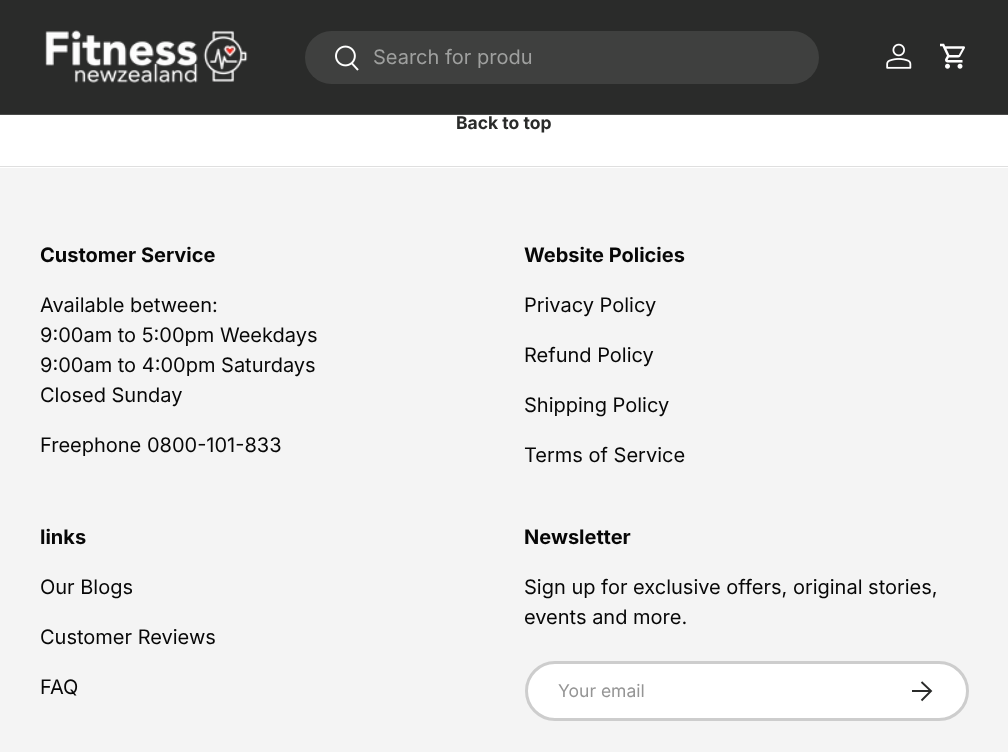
async function draw(canvas) {
	canvas.width = 1008;
	canvas.height = 752;
	const c = canvas.getContext('2d');
	c.miterLimit = 4;
	c.fontKerning = 'normal';
	async function loadImage(src) {
		const img = new Image();
		img.src = src;
		await img.decode();
		return img;
	}

	c.fillStyle = '#fff';
	c.fillRect(0, 0, 1008, 752);
	c.fillStyle = '#2a2b2a';
	c.fillRect(0, 0, 1008, 114);
	c.fillStyle = '#4a4b4a';
	c.fillRect(0, 114, 1008, 1);
	c.drawImage(await loadImage('img1.png'), 45, 30, 203, 53);
	c.fillStyle = '#3f403f';
	c.beginPath();
	c.roundRect(305, 31, 514, 53, 26.5);
	c.fill();
	c.drawImage(await loadImage('img2.png'), 335, 45, 24, 26);
	c.font = '20px Inter';
	c.fillStyle = '#9fa09f';
	c.fillText('Search for produ', 373, 64);
	c.drawImage(await loadImage('img3.png'), 886, 43, 26, 26);
	c.drawImage(await loadImage('img4.png'), 940, 43, 25, 26);
	c.fillStyle = '#dfdfdf';
	c.fillRect(0, 166, 1008, 1);
	c.font = 'bold 17.5px Inter';
	c.fillStyle = '#2a2b2a';
	c.fillText('Back to top', 456, 129);
	c.fillStyle = '#f4f4f4';
	c.fillRect(0, 168, 1008, 584);
	c.font = 'bold 20px Inter';
	c.fillStyle = '#070707';
	c.fillText('Customer Service', 40, 262);
	c.font = '20px Inter';
	for (const [text, x, y] of [
		['Available between:', 40, 312],
		['9:00am to 5:00pm Weekdays', 40, 342],
		['9:00am to 4:00pm Saturdays', 40, 372],
		['Closed Sunday', 40, 402],
		['Freephone 0800-101-833', 40, 452],
	]) {
		c.fillText(text, x, y);
	}
	c.font = 'bold 20px Inter';
	c.fillText('Website Policies', 524, 262);
	c.font = '20px Inter';
	for (const [text, x, y] of [
		['Privacy Policy', 524, 312],
		['Refund Policy', 524, 362],
		['Shipping Policy', 524, 412],
		['Terms of Service', 524, 462],
	]) {
		c.fillText(text, x, y);
	}
	c.font = 'bold 20px Inter';
	c.fillText('links', 40, 544);
	c.font = '20px Inter';
	for (const [text, x, y] of [
		['Our Blogs', 40, 594],
		['Customer Reviews', 40, 644],
		['FAQ', 40, 694],
	]) {
		c.fillText(text, x, y);
	}
	c.font = 'bold 20px Inter';
	c.fillText('Newsletter', 524, 544);
	c.font = '20px Inter';
	c.fillText('Sign up for exclusive offers, original stories,', 524, 594);
	c.fillText('events and more.', 524, 624);
	c.fillStyle = '#fff';
	c.beginPath();
	c.roundRect(525, 661, 444, 60, 30);
	c.fill();
	c.beginPath();
	c.roundRect(526.5, 662.5, 441, 57, 28.5);
	c.strokeStyle = '#07070733';
	c.lineWidth = 3;
	c.stroke();
	c.font = '17.5px Inter';
	c.fillStyle = '#959595';
	c.fillText('Your email', 558, 697);
	c.beginPath();
	c.moveTo(912, 691);
	c.lineTo(930.5, 691);
	c.moveTo(921.5, 682);
	c.lineTo(931, 691);
	c.lineTo(921.5, 700.5);
	c.strokeStyle = '#2a2b2a';
	c.lineWidth = 1.9;
	c.stroke();
}

draw(document.querySelector('canvas'));
